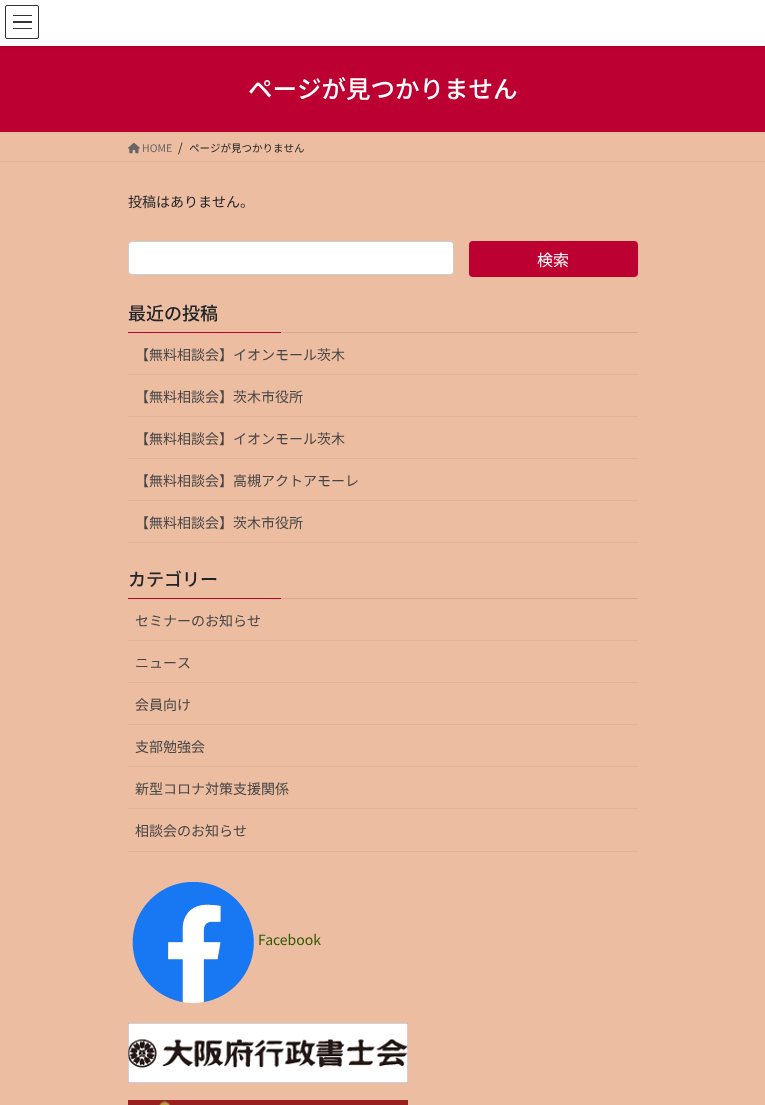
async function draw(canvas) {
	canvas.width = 765;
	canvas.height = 1105;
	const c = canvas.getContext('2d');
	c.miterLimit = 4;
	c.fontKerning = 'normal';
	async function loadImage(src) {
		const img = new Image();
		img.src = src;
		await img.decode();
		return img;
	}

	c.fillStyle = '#edbda1';
	c.fillRect(0, 0, 765, 1105);
	c.fillStyle = '#bc0032';
	c.fillRect(0, 46, 765, 86);
	c.fillStyle = '#0000001a';
	c.filter = 'blur(1.5px)';
	c.beginPath();
	c.rect(0, 1, 765, 46);
	c.fill();
	c.filter = 'none';
	for (const [x, y, w, h, color] of [
		[0, 0, 765, 46, '#fff'],
		[13, 15, 19, 1, '#333'],
		[13, 21, 19, 2, '#333'],
		[13, 28, 19, 1, '#333'],
	]) {
		c.fillStyle = color;
		c.fillRect(x, y, w, h);
	}
	c.beginPath();
	c.roundRect(5.5, 5.5, 33, 33, 1.5);
	c.strokeStyle = '#333';
	c.stroke();
	c.font = '500 24.5px Noto Sans JP';
	c.fillStyle = '#fff';
	c.fillText('ページが見つかりません', 248, 98);
	c.fillStyle = '#e1b499';
	c.fillRect(0, 161, 765, 1);
	c.drawImage(await loadImage('img1.png'), 128, 142, 12, 12);
	c.font = '10.5px Noto Sans JP';
	c.fillStyle = '#666';
	c.fillText('HOME', 142, 152);
	c.font = '12px Noto Sans JP';
	c.fillStyle = '#212529';
	c.fillText('/', 178, 152);
	c.font = '10.5px Noto Sans JP';
	c.fillText('ページが見つかりません', 189, 152);
	c.font = '14px Noto Sans JP';
	c.fillText('投稿はありません。', 128, 207);
	c.fillStyle = '#fff';
	c.beginPath();
	c.roundRect(128.5, 241.5, 325, 33, 3.5);
	c.fill();
	c.strokeStyle = '#ccc';
	c.stroke();
	c.fillStyle = '#bc0032';
	c.beginPath();
	c.roundRect(469, 241, 169, 36, 4);
	c.fill();
	c.font = '16px Noto Sans JP';
	c.fillStyle = '#fff';
	c.fillText('検索', 537, 266);
	c.fillStyle = '#d5aa91';
	c.fillRect(281, 332, 357, 1);
	c.font = '500 18px Noto Sans JP';
	c.fillStyle = '#212529';
	c.fillText('最近の投稿', 128, 320);
	c.fillStyle = '#bc0032';
	c.fillRect(128, 332, 153, 1);
	c.fillStyle = '#e1b499';
	c.fillRect(128, 374, 510, 1);
	c.font = '14px Noto Sans JP';
	c.fillStyle = '#464646';
	c.fillText('【無料相談会】イオンモール茨木', 135, 360);
	c.fillStyle = '#e1b499';
	c.fillRect(128, 416, 510, 1);
	c.fillStyle = '#464646';
	c.fillText('【無料相談会】茨木市役所', 135, 402);
	c.fillStyle = '#e1b499';
	c.fillRect(128, 458, 510, 1);
	c.fillStyle = '#464646';
	c.fillText('【無料相談会】イオンモール茨木', 135, 444);
	c.fillStyle = '#e1b499';
	c.fillRect(128, 500, 510, 1);
	c.fillStyle = '#464646';
	c.fillText('【無料相談会】高槻アクトアモーレ', 135, 486);
	c.fillStyle = '#e1b499';
	c.fillRect(128, 542, 510, 1);
	c.fillStyle = '#464646';
	c.fillText('【無料相談会】茨木市役所', 135, 528);
	c.fillStyle = '#d5aa91';
	c.fillRect(281, 598, 357, 1);
	c.font = '500 18px Noto Sans JP';
	c.fillStyle = '#212529';
	c.fillText('カテゴリー', 128, 586);
	c.fillStyle = '#bc0032';
	c.fillRect(128, 598, 153, 1);
	c.fillStyle = '#e1b499';
	c.fillRect(128, 640, 510, 1);
	c.font = '14px Noto Sans JP';
	c.fillStyle = '#464646';
	c.fillText('セミナーのお知らせ', 135, 626);
	c.fillStyle = '#e1b499';
	c.fillRect(128, 682, 510, 1);
	c.fillStyle = '#464646';
	c.fillText('ニュース', 135, 668);
	c.fillStyle = '#e1b499';
	c.fillRect(128, 724, 510, 1);
	c.fillStyle = '#464646';
	c.fillText('会員向け', 135, 710);
	c.fillStyle = '#e1b499';
	c.fillRect(128, 766, 510, 1);
	c.fillStyle = '#464646';
	c.fillText('支部勉強会', 135, 752);
	c.fillStyle = '#e1b499';
	c.fillRect(128, 808, 510, 1);
	c.fillStyle = '#464646';
	c.fillText('新型コロナ対策支援関係', 135, 794);
	c.fillStyle = '#e1b499';
	c.fillRect(128, 851, 510, 1);
	c.fillStyle = '#464646';
	c.fillText('相談会のお知らせ', 135, 836);
	c.drawImage(await loadImage('img2.png'), 132, 882, 122, 121);
	c.fillStyle = '#2e5900';
	c.fillText('Facebook', 258, 945);
	c.drawImage(await loadImage('img3.png'), 128, 1023, 280, 60);
	c.drawImage(await loadImage('img4.png'), 128, 1100, 280, 5);
}

draw(document.querySelector('canvas'));
